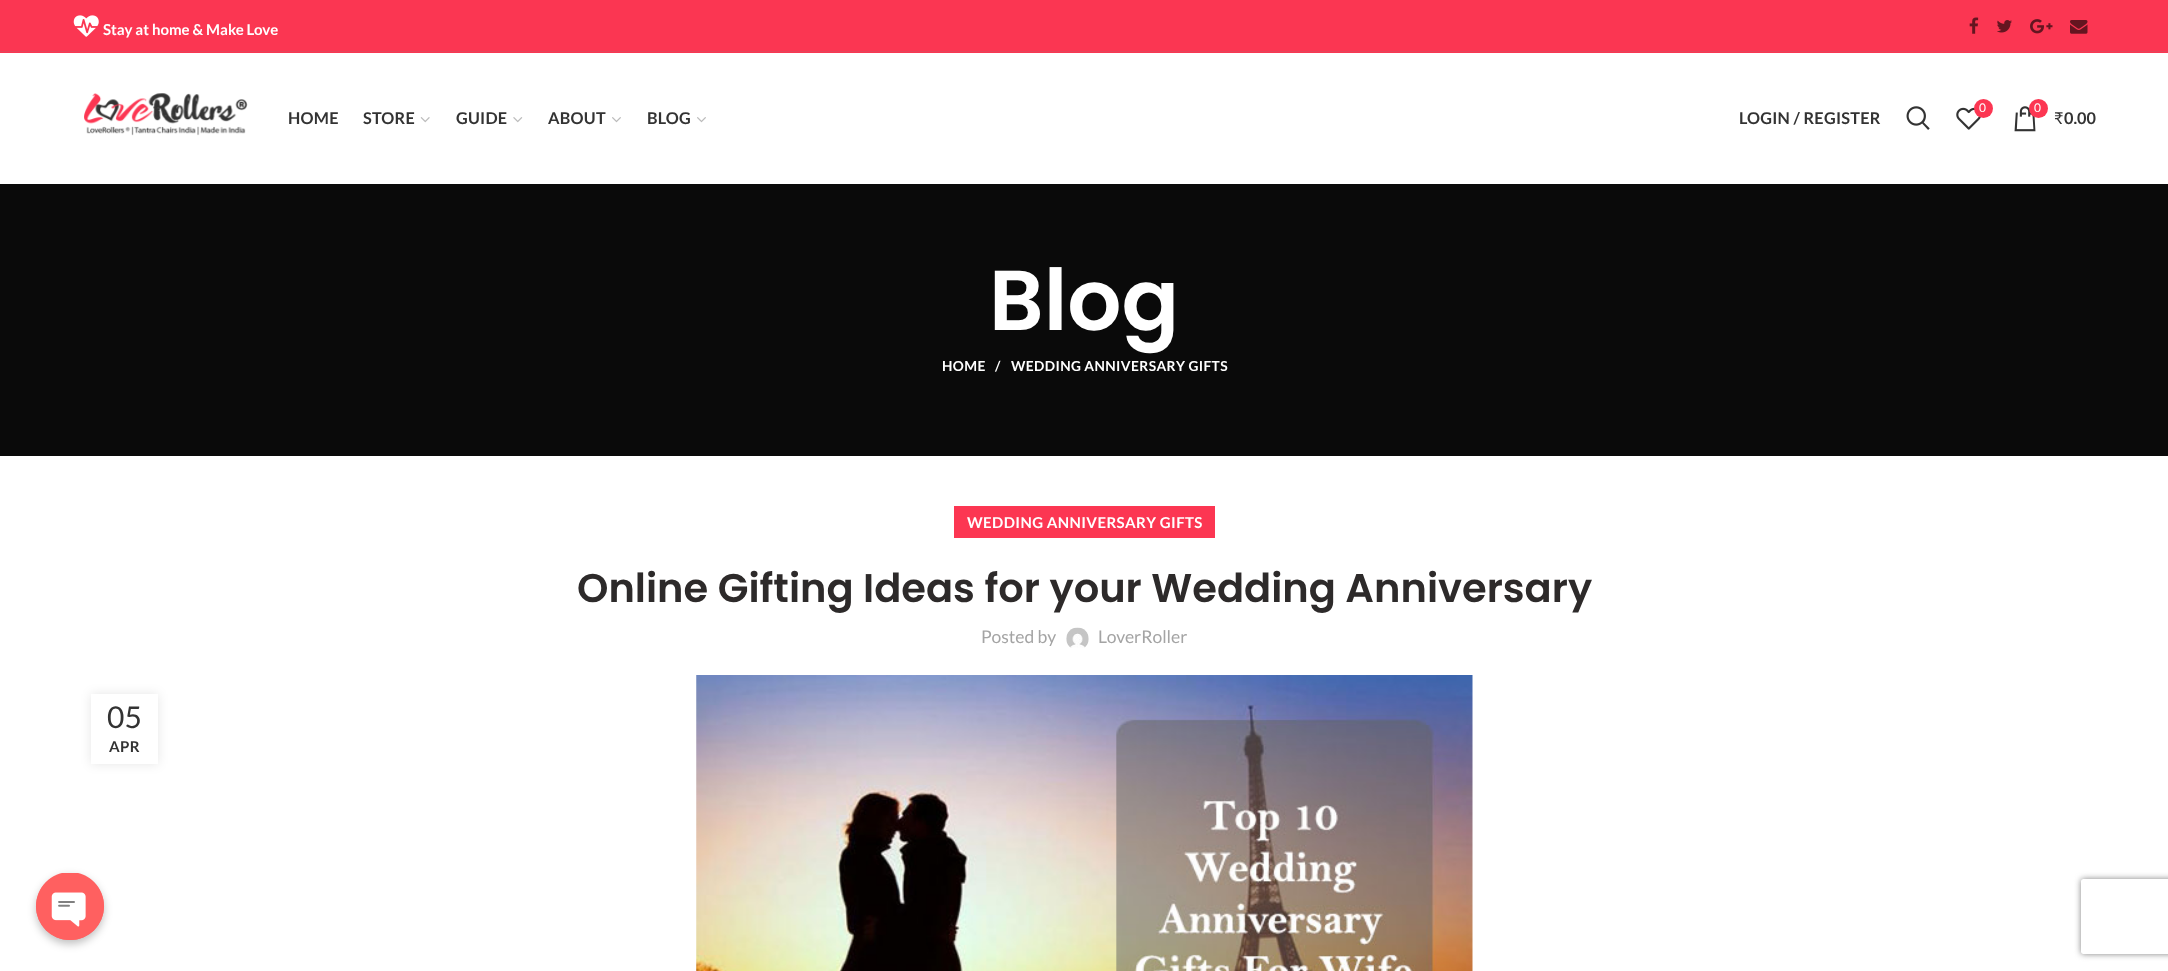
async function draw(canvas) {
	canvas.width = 2168;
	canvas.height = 971;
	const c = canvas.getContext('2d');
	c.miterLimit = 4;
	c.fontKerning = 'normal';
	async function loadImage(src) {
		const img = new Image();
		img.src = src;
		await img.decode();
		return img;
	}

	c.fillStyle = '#fff';
	c.fillRect(0, 0, 2168, 971);
	c.fillStyle = '#fb3652';
	c.fillRect(0, 0, 2168, 53);
	c.fillStyle = '#e3455b';
	c.fillRect(0, 51, 2168, 1);
	c.drawImage(await loadImage('img1.png'), 73, 15, 26, 22);
	c.font = 'bold 15px Lato';
	c.fillStyle = '#fff';
	c.fillText('Stay at home & Make Love', 103, 35);
	c.drawImage(await loadImage('img2.png'), 1969, 17, 10, 17);
	c.drawImage(await loadImage('img3.png'), 1997, 20, 15, 13);
	c.drawImage(await loadImage('img4.png'), 2030, 19, 23, 15);
	c.drawImage(await loadImage('img5.png'), 2070, 20, 18, 14);
	c.drawImage(await loadImage('img6.png'), 84, 93, 164, 43);
	c.letterSpacing = '0.25px';
	c.font = 'bold 16.25px Lato';
	c.fillStyle = '#333';
	c.fillText('HOME', 288, 124);
	c.fillText('STORE', 363, 124);
	c.drawImage(await loadImage('img7.png'), 420, 117, 10, 6);
	c.fillText('GUIDE', 456, 124);
	c.drawImage(await loadImage('img8.png'), 513, 117, 10, 6);
	c.fillText('ABOUT', 548, 124);
	c.drawImage(await loadImage('img9.png'), 612, 117, 9, 6);
	c.fillText('BLOG', 647, 124);
	c.drawImage(await loadImage('img9.png'), 697, 117, 9, 6);
	c.fillText('LOGIN / REGISTER', 1739, 124);
	c.drawImage(await loadImage('img10.png'), 1906, 106, 24, 24);
	c.drawImage(await loadImage('img11.png'), 1956, 107, 25, 23);
	c.fillStyle = '#fc3652';
	c.beginPath();
	c.arc(1983.5, 108.5, 9.5, 0, 2 * Math.PI);
	c.fill();
	c.letterSpacing = '0px';
	c.font = '12px Lato';
	c.fillStyle = '#fff';
	c.fillText('0', 1979, 112);
	c.drawImage(await loadImage('img12.png'), 2014, 106, 22, 26);
	c.fillStyle = '#fc3652';
	c.beginPath();
	c.arc(2038.5, 108.5, 9.5, 0, 2 * Math.PI);
	c.fill();
	c.fillStyle = '#fff';
	c.fillText('0', 2034, 112);
	c.font = '16.25px "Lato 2"';
	c.fillStyle = '#333';
	c.fillText('₹', 2054, 124);
	c.font = 'bold 16.25px Lato';
	c.fillText('0.00', 2064, 124);
	c.fillStyle = '#0a0a0a';
	c.fillRect(0, 184, 2168, 272);
	c.font = '600 85px Poppins';
	c.fillStyle = '#fff';
	c.fillText('Blog', 989, 330);
	c.letterSpacing = '0.4px';
	c.font = 'bold 13.75px Lato';
	for (const [text, x, y] of [
		['HOME', 942, 371],
		['/', 995, 371],
		['WEDDING ANNIVERSARY GIFTS', 1011, 371],
	]) {
		c.fillText(text, x, y);
	}
	c.fillStyle = '#fc3652';
	c.fillRect(954, 506, 261, 32);
	c.font = 'bold 15px Lato';
	c.fillStyle = '#fff';
	c.fillText('WEDDING ANNIVERSARY GIFTS', 967, 528);
	c.letterSpacing = '0px';
	c.font = '600 40px Poppins';
	c.fillStyle = '#2d2a2a';
	c.fillText('Online Gifting Ideas for your Wedding Anniversary', 577, 602);
	c.font = '17.5px Lato';
	c.fillStyle = '#a4a4a4';
	c.fillText('Posted by', 981, 643);
	c.drawImage(await loadImage('img13.png'), 1066, 627, 23, 21);
	c.fillText('LoverRoller', 1098, 643);
	c.fillStyle = '#0000001a';
	c.filter = 'blur(5.5px)';
	c.beginPath();
	c.rect(91, 694, 67, 70);
	c.fill();
	c.filter = 'none';
	c.fillStyle = '#fff';
	c.fillRect(91, 694, 67, 70);
	c.font = '30px Lato';
	c.fillStyle = '#333';
	c.fillText('05', 107, 728);
	c.letterSpacing = '0.4px';
	c.font = 'bold 15px Lato';
	c.fillText('APR', 109, 752);
	c.drawImage(await loadImage('img14.png'), 696, 675, 777, 296);
	c.fillStyle = '#00000040';
	c.filter = 'blur(4px)';
	c.beginPath();
	c.roundRect(36, 876, 68, 68, 34);
	c.fill();
	c.filter = 'none';
	c.fillStyle = '#ff6060';
	c.beginPath();
	c.roundRect(36, 873, 68, 67, 33.5);
	c.fill();
	c.drawImage(await loadImage('img15.png'), 36, 873, 68, 67);
	c.save();
	c.beginPath();
	c.moveTo(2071, 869);
	c.lineTo(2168, 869);
	c.lineTo(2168, 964);
	c.lineTo(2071, 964);
	c.closePath();
	c.moveTo(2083.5, 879);
	c.lineTo(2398.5, 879);
	c.bezierCurveTo(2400, 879, 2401, 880, 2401, 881.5);
	c.lineTo(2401, 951.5);
	c.bezierCurveTo(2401, 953, 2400, 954, 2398.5, 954);
	c.lineTo(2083.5, 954);
	c.bezierCurveTo(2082, 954, 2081, 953, 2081, 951.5);
	c.lineTo(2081, 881.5);
	c.bezierCurveTo(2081, 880, 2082, 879, 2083.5, 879);
	c.closePath();
	c.clip('evenodd');
	c.fillStyle = '#808080';
	c.filter = 'blur(3px)';
	c.beginPath();
	c.roundRect(2081, 879, 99, 75, 2.5);
	c.fill();
	c.filter = 'none';
	c.restore();
}

draw(document.querySelector('canvas'));
